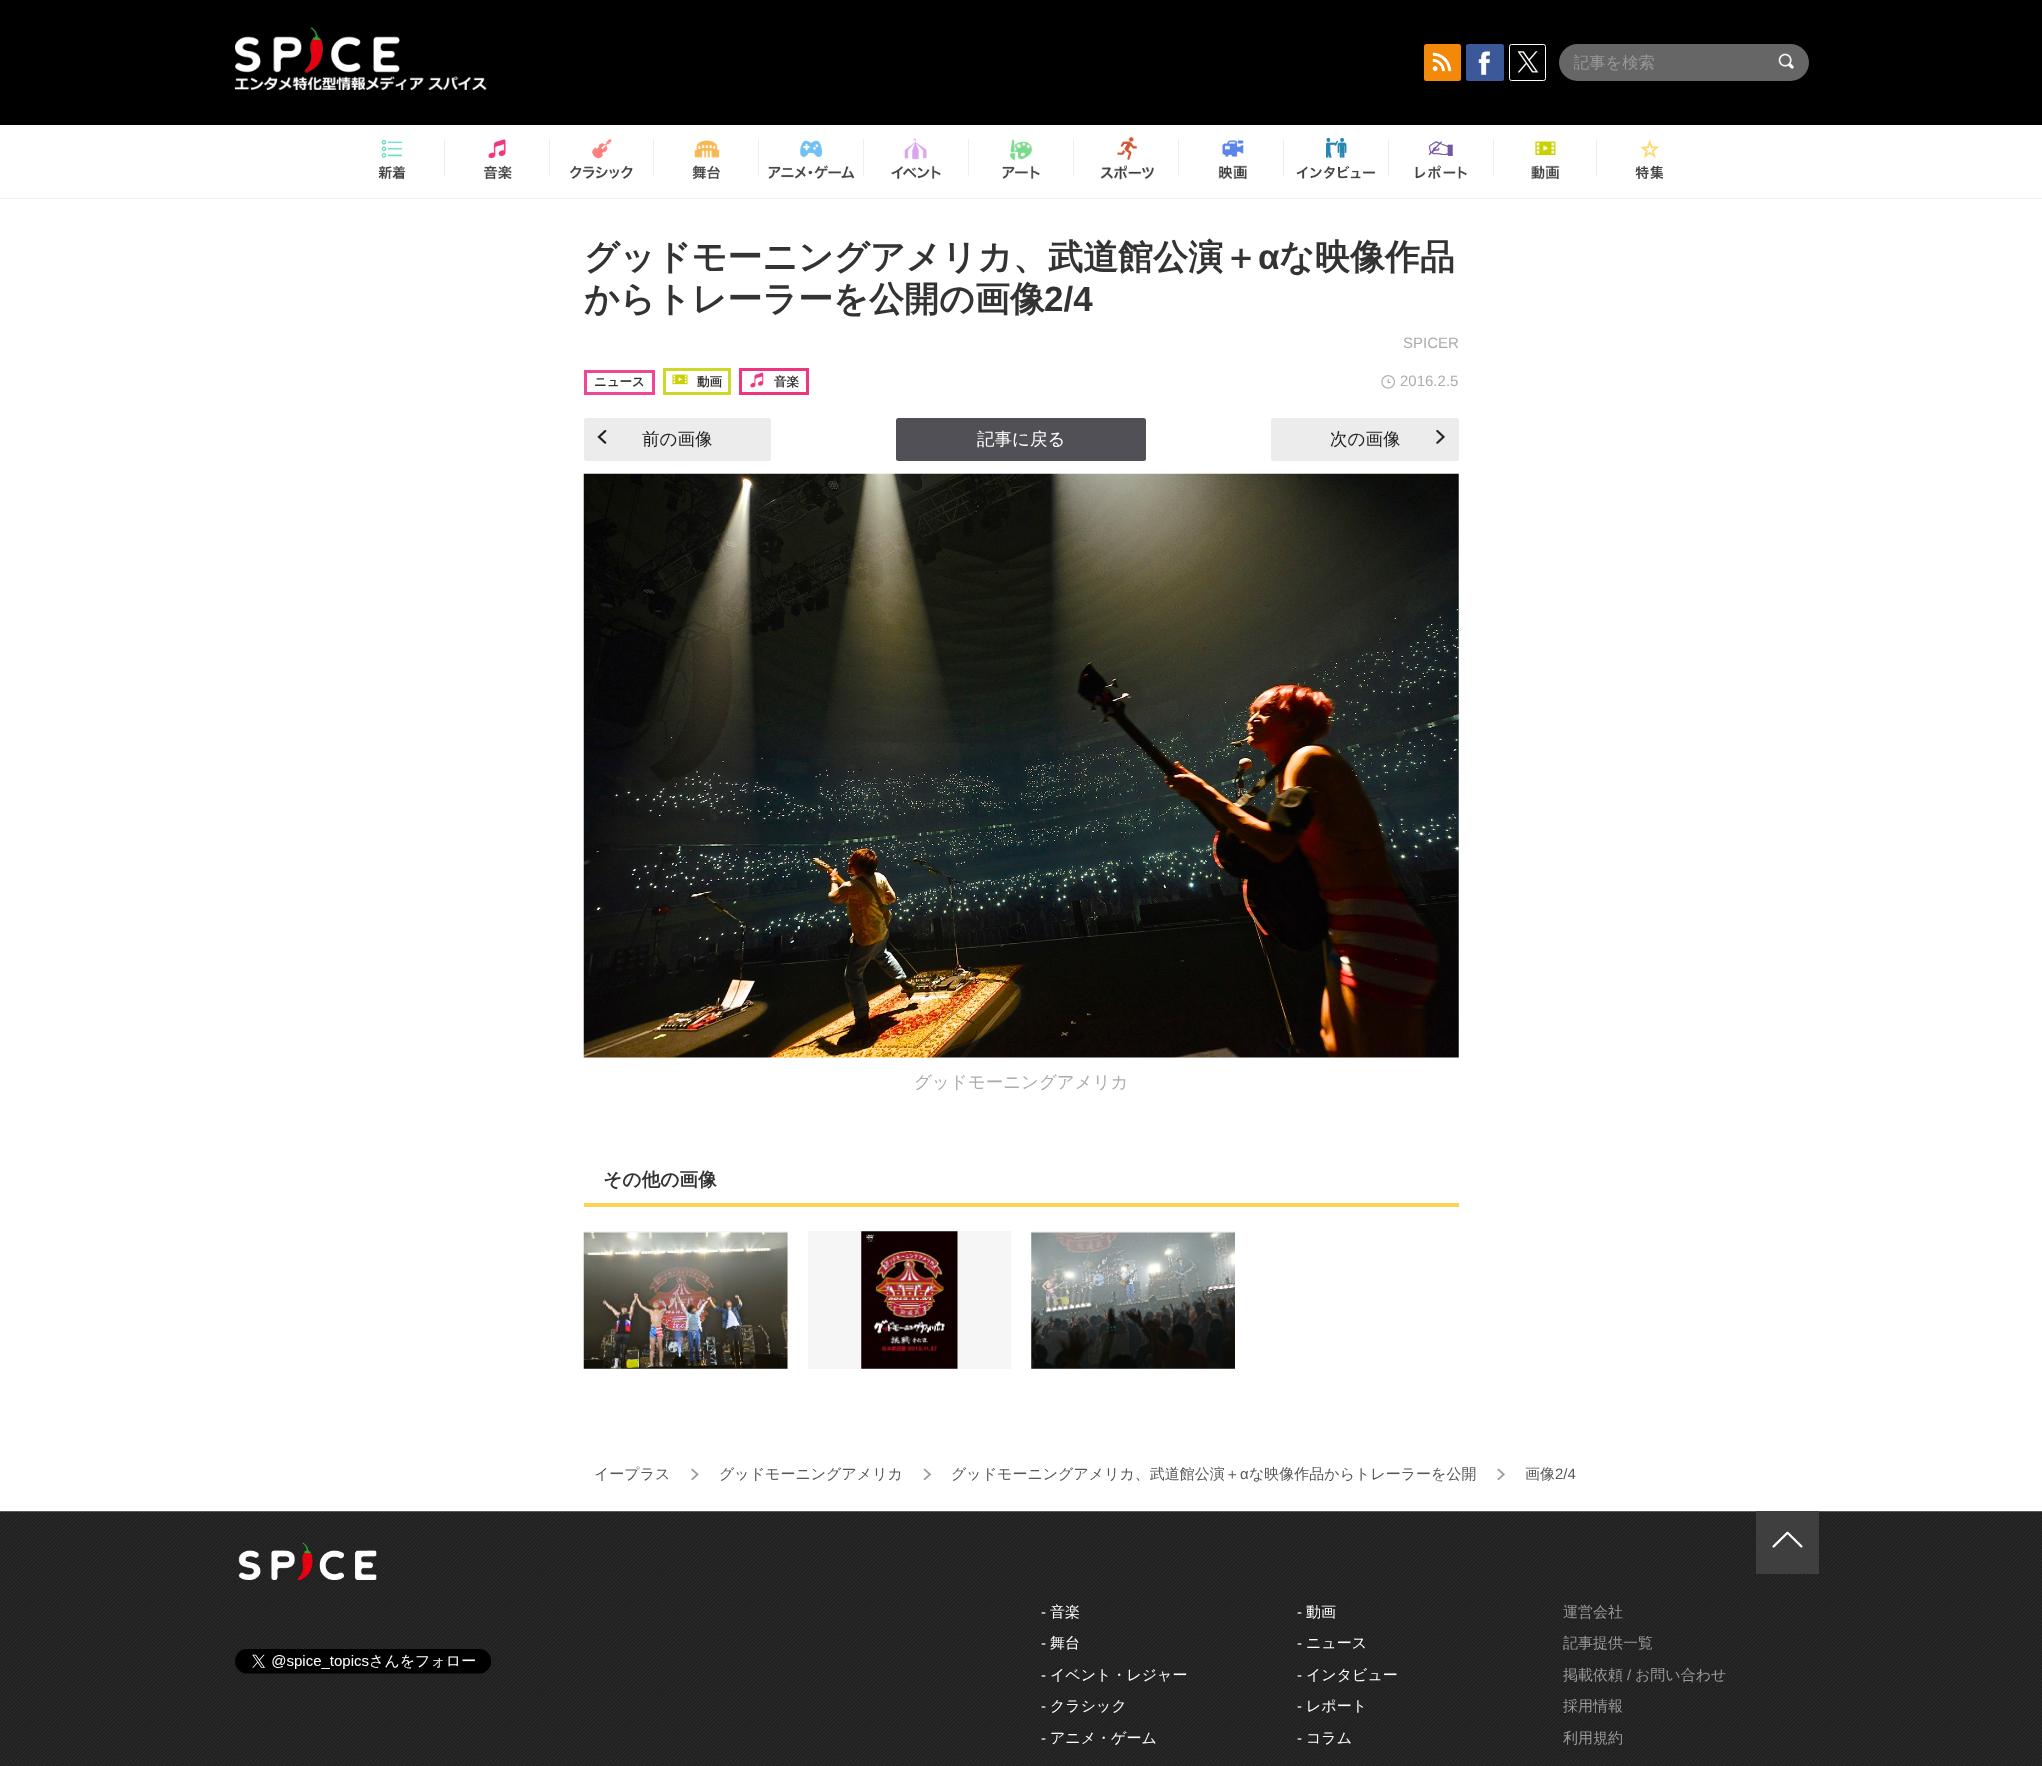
async function draw(canvas) {
	canvas.width = 2042;
	canvas.height = 1766;
	const c = canvas.getContext('2d');
	c.miterLimit = 4;
	c.fontKerning = 'normal';
	async function loadImage(src) {
		const img = new Image();
		img.src = src;
		await img.decode();
		return img;
	}

	c.fillStyle = '#fff';
	c.fillRect(0, 0, 2042, 1766);
	c.fillStyle = '#000';
	c.fillRect(0, 0, 2042, 125);
	c.drawImage(await loadImage('img1.png'), 235, 27, 252, 63);
	c.fillStyle = '#f2890a';
	c.beginPath();
	c.roundRect(1424, 44, 37, 37, 2.5);
	c.fill();
	c.drawImage(await loadImage('img2.png'), 1432, 52, 20, 20);
	c.fillStyle = '#3b5999';
	c.beginPath();
	c.roundRect(1466, 44, 38, 37, 2.5);
	c.fill();
	c.drawImage(await loadImage('img3.png'), 1478, 51, 12, 24);
	c.beginPath();
	c.roundRect(1509.5, 44.5, 36, 36, 2);
	c.strokeStyle = '#fff';
	c.stroke();
	c.drawImage(await loadImage('img4.png'), 1518, 51, 21, 22);
	c.fillStyle = '#666';
	c.beginPath();
	c.roundRect(1559, 44, 250, 37, 18.5);
	c.fill();
	c.save();
	c.beginPath();
	c.rect(1574, 51, 191, 23);
	c.clip();
	c.font = '500 16.25px WenQuanYi Zen Hei';
	c.fillStyle = '#999';
	c.fillText('記事を検索', 1573, 68);
	c.restore();
	c.drawImage(await loadImage('img5.png'), 1778, 53, 16, 16);
	c.fillStyle = '#eee';
	c.fillRect(0, 198, 2042, 1);
	c.drawImage(await loadImage('img6.png'), 378, 139, 27, 40);
	c.fillRect(444, 139, 1, 37);
	c.drawImage(await loadImage('img7.png'), 483, 139, 29, 41);
	c.fillRect(549, 139, 1, 37);
	c.drawImage(await loadImage('img8.png'), 569, 139, 64, 40);
	c.fillRect(653, 139, 1, 37);
	c.drawImage(await loadImage('img9.png'), 692, 140, 28, 40);
	c.fillRect(758, 139, 1, 37);
	c.drawImage(await loadImage('img10.png'), 768, 140, 87, 39);
	c.fillRect(863, 139, 1, 37);
	c.drawImage(await loadImage('img11.png'), 891, 138, 50, 41);
	c.fillRect(968, 139, 1, 37);
	c.drawImage(await loadImage('img12.png'), 1002, 139, 38, 40);
	c.fillRect(1073, 139, 1, 37);
	c.drawImage(await loadImage('img13.png'), 1100, 136, 55, 44);
	c.fillRect(1178, 139, 1, 37);
	c.drawImage(await loadImage('img14.png'), 1218, 140, 30, 40);
	c.fillRect(1283, 139, 1, 37);
	c.drawImage(await loadImage('img15.png'), 1296, 137, 80, 42);
	c.fillRect(1388, 139, 1, 37);
	c.drawImage(await loadImage('img16.png'), 1415, 141, 52, 38);
	c.fillRect(1493, 139, 1, 37);
	c.drawImage(await loadImage('img17.png'), 1531, 141, 29, 39);
	c.fillRect(1596, 139, 1, 37);
	c.drawImage(await loadImage('img18.png'), 1635, 139, 29, 40);
	c.font = 'bold 35px WenQuanYi Zen Hei';
	c.fillStyle = '#333';
	c.fillText('グッドモーニングアメリカ、武道館公演＋', 584, 269);
	c.font = 'bold 35px Liberation Sans';
	c.fillText('α', 1258, 269);
	c.font = 'bold 35px WenQuanYi Zen Hei';
	c.fillText('な映像作品', 1279, 269);
	c.fillText('からトレーラーを公開の画像', 584, 311);
	c.font = 'bold 35px Liberation Sans';
	c.fillText('2/4', 1044, 311);
	c.font = '15px Liberation Sans';
	c.fillStyle = '#acacac';
	c.fillText('SPICER', 1403, 348);
	c.strokeStyle = '#f04596';
	c.lineWidth = 3;
	c.strokeRect(585.5, 371.5, 68, 22);
	c.font = 'bold 12.5px WenQuanYi Zen Hei';
	c.fillStyle = '#333';
	c.fillText('ニュース', 594, 386);
	c.strokeStyle = '#ced827';
	c.strokeRect(664.5, 369.5, 65, 24);
	c.drawImage(await loadImage('img19.png'), 672, 374, 16, 11);
	c.fillText('動画', 697, 386);
	c.strokeStyle = '#ef357f';
	c.strokeRect(740.5, 369.5, 67, 24);
	c.drawImage(await loadImage('img20.png'), 750, 372, 14, 16);
	c.fillText('音楽', 774, 386);
	c.drawImage(await loadImage('img21.png'), 1381, 375, 14, 14);
	c.font = '15px Liberation Sans';
	c.fillStyle = '#acacac';
	c.fillText('2016.2.5', 1400, 386);
	c.fillStyle = '#ececec';
	c.beginPath();
	c.roundRect(584, 418, 187, 43, 2.5);
	c.fill();
	c.drawImage(await loadImage('img22.png'), 597, 430, 10, 14);
	c.font = '500 17.5px WenQuanYi Zen Hei';
	c.fillStyle = '#1e1e1e';
	c.fillText('前の画像', 642, 445);
	c.fillStyle = '#515056';
	c.beginPath();
	c.roundRect(896, 418, 250, 43, 2.5);
	c.fill();
	c.fillStyle = '#fff';
	c.fillText('記事に戻る', 977, 445);
	c.fillStyle = '#ececec';
	c.beginPath();
	c.roundRect(1271, 418, 188, 43, 2.5);
	c.fill();
	c.fillStyle = '#1e1e1e';
	c.fillText('次の画像', 1330, 445);
	c.drawImage(await loadImage('img23.png'), 1436, 430, 9, 14);
	c.drawImage(await loadImage('img24.png'), 583, 473, 876, 585);
	c.fillStyle = '#acacac';
	c.fillText('グッドモーニングアメリカ', 914, 1088);
	c.fillStyle = '#fed257';
	c.fillRect(584, 1203, 875, 4);
	c.font = 'bold 18.75px WenQuanYi Zen Hei';
	c.fillStyle = '#333';
	c.fillText('その他の画像', 603, 1186);
	c.fillStyle = '#f6f6f6';
	c.fillRect(584, 1231, 204, 138);
	c.drawImage(await loadImage('img25.png'), 583, 1232, 205, 137);
	c.fillRect(808, 1231, 203, 138);
	c.drawImage(await loadImage('img26.png'), 861, 1231, 97, 138);
	c.fillRect(1031, 1231, 204, 138);
	c.drawImage(await loadImage('img27.png'), 1031, 1232, 204, 137);
	c.font = '500 15px WenQuanYi Zen Hei';
	c.fillStyle = '#565656';
	c.fillText('イープラス', 594, 1479);
	c.drawImage(await loadImage('img28.png'), 691, 1468, 8, 12);
	c.fillText('グッドモーニングアメリカ', 719, 1479);
	c.drawImage(await loadImage('img29.png'), 923, 1468, 9, 12);
	c.fillText('グッドモーニングアメリカ、武道館公演＋', 951, 1479);
	c.font = '15px Liberation Sans';
	c.fillText('α', 1240, 1479);
	c.font = '500 15px WenQuanYi Zen Hei';
	c.fillText('な映像作品からトレーラーを公開', 1249, 1479);
	c.drawImage(await loadImage('img30.png'), 1497, 1468, 8, 12);
	c.fillText('画像', 1525, 1479);
	c.font = '15px Liberation Sans';
	c.fillText('2/4', 1555, 1479);
	c.drawImage(await loadImage('img31.png'), 0, 1511, 2042, 255);
	c.fillStyle = '#3f3f3f';
	c.fillRect(1756, 1511, 63, 63);
	c.drawImage(await loadImage('img32.png'), 1772, 1531, 31, 17);
	c.drawImage(await loadImage('img33.png'), 238, 1542, 139, 38);
	c.drawImage(await loadImage('img34.png'), 235, 1649, 256, 25);
	c.fillStyle = '#fff';
	c.fillText('-', 1041, 1617);
	c.font = '500 15px WenQuanYi Zen Hei';
	c.fillText('音楽', 1050, 1617);
	c.font = '15px Liberation Sans';
	c.fillText('-', 1041, 1648);
	c.font = '500 15px WenQuanYi Zen Hei';
	c.fillText('舞台', 1050, 1648);
	c.font = '15px Liberation Sans';
	c.fillText('-', 1041, 1680);
	c.font = '500 15px WenQuanYi Zen Hei';
	c.fillText('イベント・レジャー', 1050, 1680);
	c.font = '15px Liberation Sans';
	c.fillText('-', 1041, 1711);
	c.font = '500 15px WenQuanYi Zen Hei';
	c.fillText('クラシック', 1050, 1711);
	c.font = '15px Liberation Sans';
	c.fillText('-', 1041, 1743);
	c.font = '500 15px WenQuanYi Zen Hei';
	c.fillText('アニメ・ゲーム', 1050, 1743);
	c.font = '15px Liberation Sans';
	c.fillText('-', 1297, 1617);
	c.font = '500 15px WenQuanYi Zen Hei';
	c.fillText('動画', 1306, 1617);
	c.font = '15px Liberation Sans';
	c.fillText('-', 1297, 1648);
	c.font = '500 15px WenQuanYi Zen Hei';
	c.fillText('ニュース', 1306, 1648);
	c.font = '15px Liberation Sans';
	c.fillText('-', 1297, 1680);
	c.font = '500 15px WenQuanYi Zen Hei';
	c.fillText('インタビュー', 1306, 1680);
	c.font = '15px Liberation Sans';
	c.fillText('-', 1297, 1711);
	c.font = '500 15px WenQuanYi Zen Hei';
	c.fillText('レポート', 1306, 1711);
	c.font = '15px Liberation Sans';
	c.fillText('-', 1297, 1743);
	c.font = '500 15px WenQuanYi Zen Hei';
	c.fillText('コラム', 1306, 1743);
	c.fillStyle = '#999';
	for (const [text, x, y] of [
		['運営会社', 1563, 1617],
		['記事提供一覧', 1563, 1648],
		['掲載依頼', 1563, 1680],
	]) {
		c.fillText(text, x, y);
	}
	c.font = '15px Liberation Sans';
	c.fillText('/', 1627, 1680);
	c.font = '500 15px WenQuanYi Zen Hei';
	for (const [text, x, y] of [
		['お問い合わせ', 1635, 1680],
		['採用情報', 1563, 1711],
		['利用規約', 1563, 1743],
	]) {
		c.fillText(text, x, y);
	}
}

draw(document.querySelector('canvas'));
